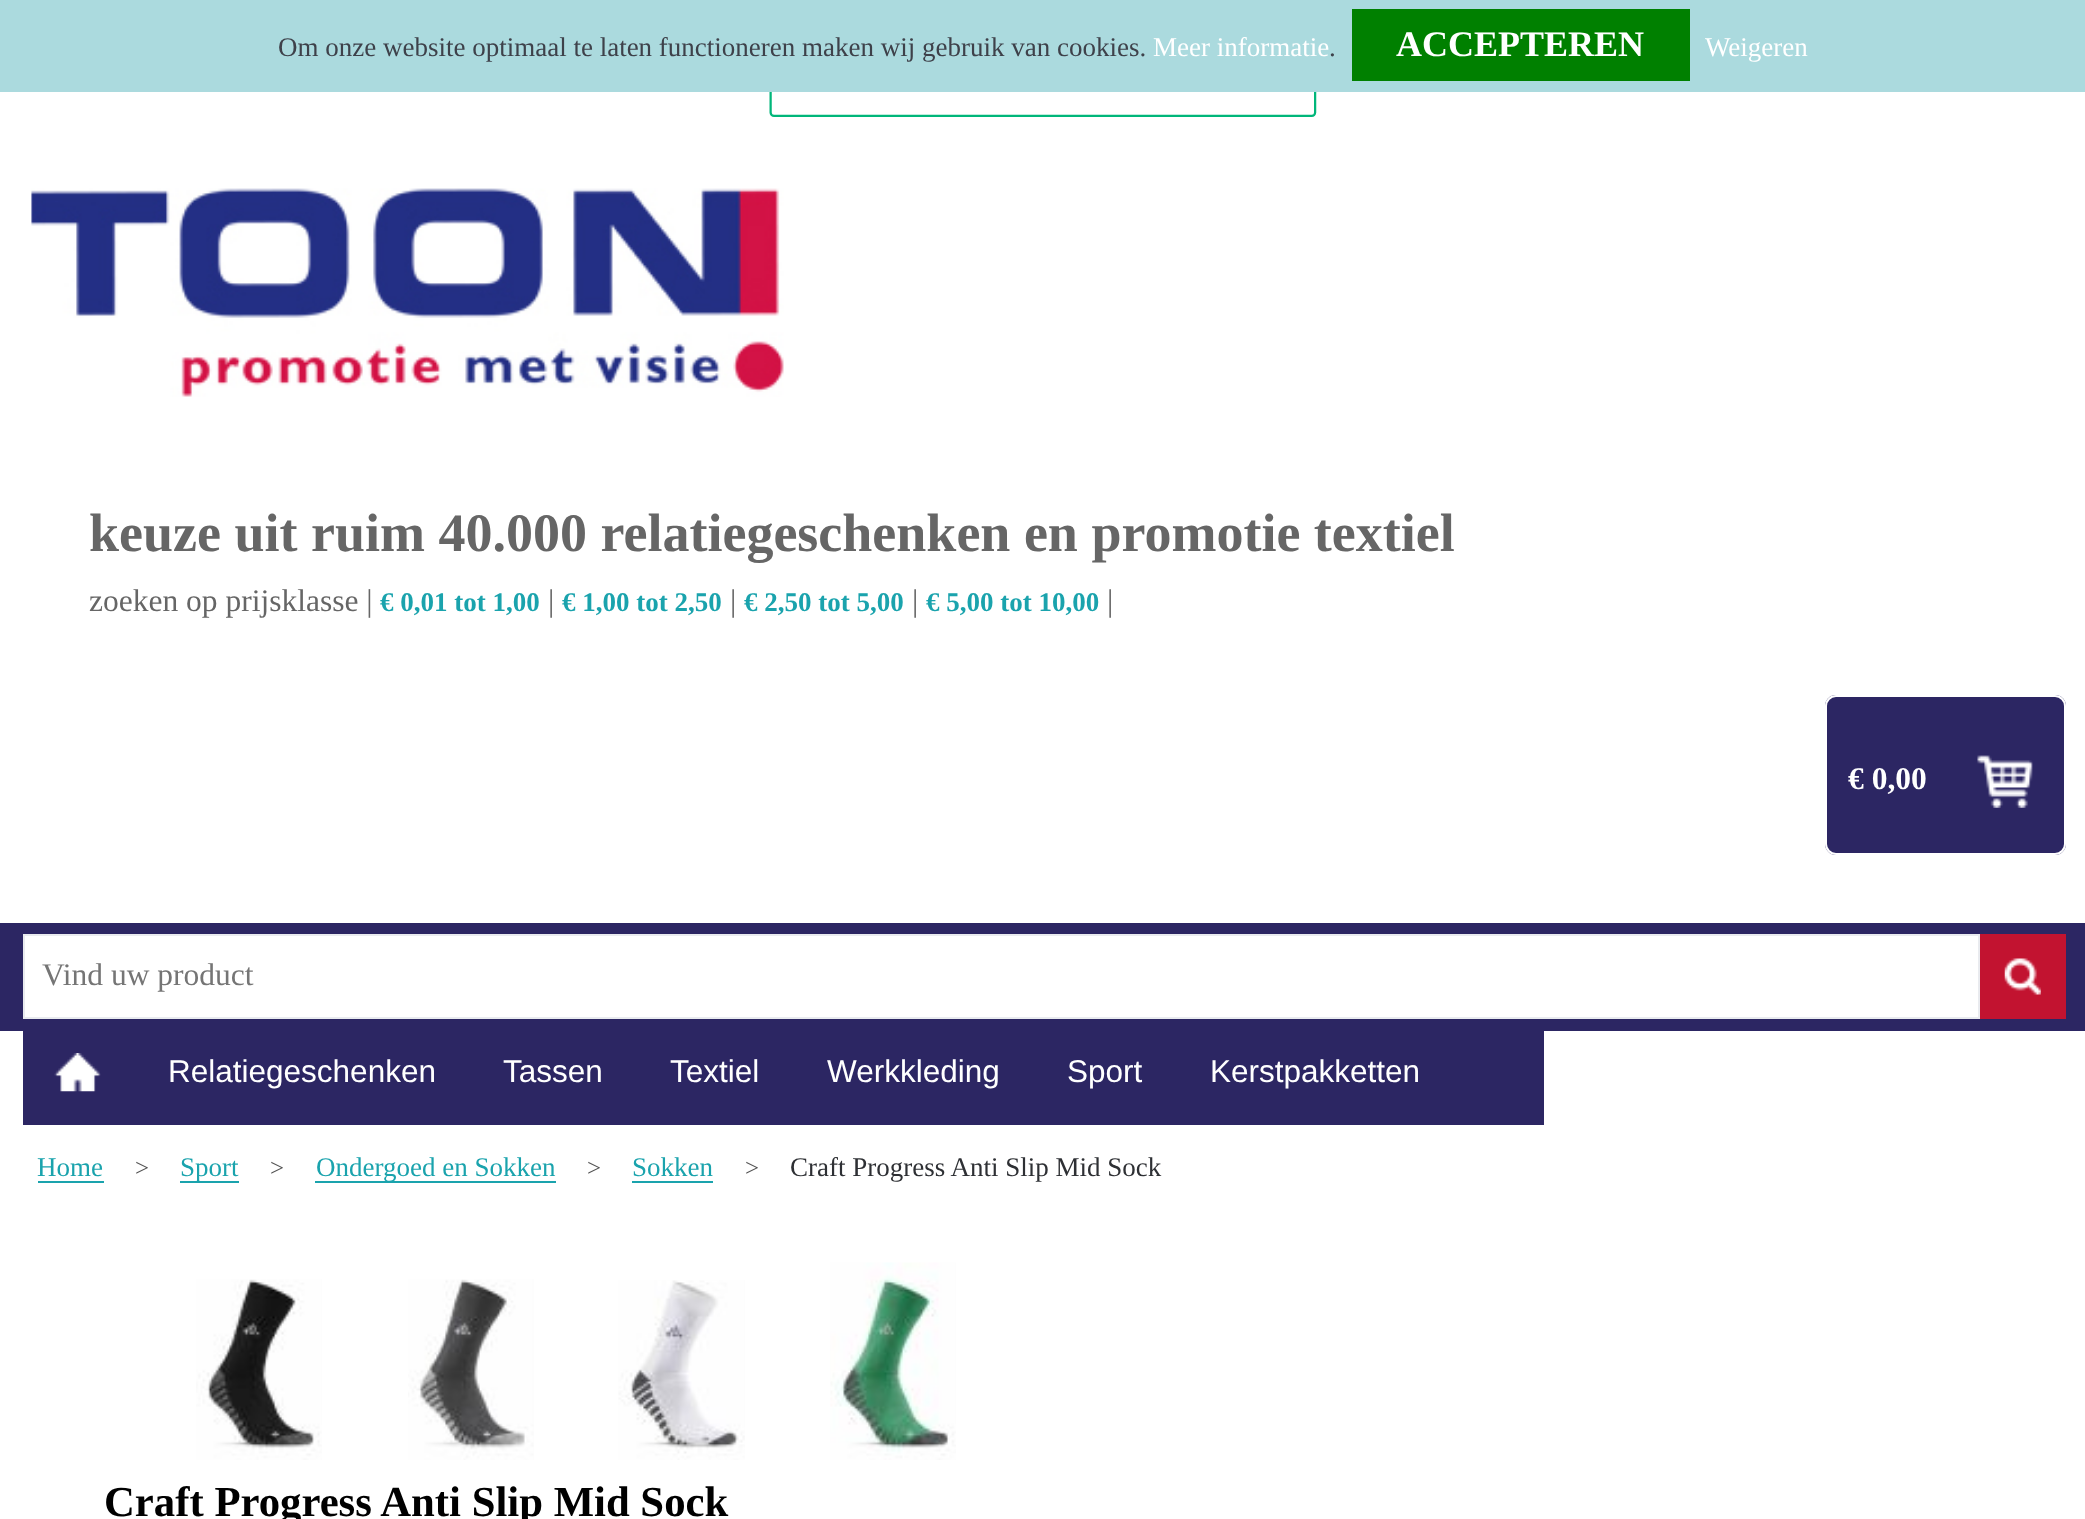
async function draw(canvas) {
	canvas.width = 2085;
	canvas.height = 1519;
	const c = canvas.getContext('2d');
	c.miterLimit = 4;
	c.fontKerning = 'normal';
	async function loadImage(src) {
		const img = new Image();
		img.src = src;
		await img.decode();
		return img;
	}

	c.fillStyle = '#fff';
	c.fillRect(0, 0, 2085, 1519);
	c.fillStyle = '#abdade';
	c.fillRect(0, 0, 2085, 92);
	c.font = '27px Liberation Serif';
	c.fillStyle = '#3e414a';
	c.fillText('Om onze website optimaal te laten functioneren maken wij gebruik van cookies.', 278, 56);
	c.fillStyle = '#fff';
	c.fillText('Meer informatie', 1153, 56);
	c.fillStyle = '#3e414a';
	c.fillText('.', 1329, 56);
	c.fillStyle = '#008000';
	c.fillRect(1352, 9, 338, 72);
	c.font = 'bold 36px Liberation Serif';
	c.fillStyle = '#fff';
	c.fillText('ACCEPTEREN', 1396, 56);
	c.font = '27px Liberation Serif';
	c.fillText('Weigeren', 1705, 56);
	c.drawImage(await loadImage('img1.png'), 769, 92, 548, 25);
	c.drawImage(await loadImage('img2.png'), 31, 188, 753, 209);
	c.font = 'bold 54px Liberation Serif';
	c.fillStyle = '#666';
	c.fillText('keuze uit ruim 40.000 relatiegeschenken en promotie textiel', 89, 551);
	c.font = '31.5px Liberation Serif';
	c.fillText('zoeken op prijsklasse |', 89, 611);
	c.font = 'bold 27px Liberation Serif';
	c.fillStyle = '#1aa3ad';
	c.fillText('€ 0,01 tot 1,00', 380, 611);
	c.font = '31.5px Liberation Serif';
	c.fillStyle = '#666';
	c.fillText('|', 548, 611);
	c.font = 'bold 27px Liberation Serif';
	c.fillStyle = '#1aa3ad';
	c.fillText('€ 1,00 tot 2,50', 562, 611);
	c.font = '31.5px Liberation Serif';
	c.fillStyle = '#666';
	c.fillText('|', 730, 611);
	c.font = 'bold 27px Liberation Serif';
	c.fillStyle = '#1aa3ad';
	c.fillText('€ 2,50 tot 5,00', 744, 611);
	c.font = '31.5px Liberation Serif';
	c.fillStyle = '#666';
	c.fillText('|', 912, 611);
	c.font = 'bold 27px Liberation Serif';
	c.fillStyle = '#1aa3ad';
	c.fillText('€ 5,00 tot 10,00', 926, 611);
	c.font = '31.5px Liberation Serif';
	c.fillStyle = '#666';
	c.fillText('|', 1107, 611);
	c.fillStyle = '#2c2663';
	c.beginPath();
	c.roundRect(1825, 695, 241, 160, 11);
	c.fill();
	c.drawImage(await loadImage('img3.png'), 1977, 755, 56, 53);
	c.beginPath();
	c.roundRect(1826, 696, 239, 158, 10);
	c.strokeStyle = '#fff';
	c.lineWidth = 2;
	c.stroke();
	c.font = 'bold 31.5px Liberation Serif';
	c.fillStyle = '#fff';
	c.fillText('€ 0,00', 1848, 789);
	c.fillStyle = '#2c2663';
	c.fillRect(0, 923, 2085, 108);
	c.fillStyle = '#fff';
	c.beginPath();
	c.rect(24, 935, 1955, 83);
	c.fill();
	c.strokeStyle = '#e9ebef';
	c.stroke();
	c.font = '31.5px Liberation Serif';
	c.fillStyle = '#757575';
	c.fillText('Vind uw product', 42, 985);
	c.fillStyle = '#c21330';
	c.fillRect(1980, 934, 86, 85);
	c.drawImage(await loadImage('img4.png'), 2004, 958, 37, 37);
	c.fillStyle = '#2c2663';
	c.fillRect(23, 1031, 1521, 94);
	c.drawImage(await loadImage('img5.png'), 54, 1053, 47, 39);
	c.font = '31.5px Liberation Sans';
	c.fillStyle = '#fff';
	for (const [text, x, y] of [
		['Relatiegeschenken', 168, 1082],
		['Tassen', 503, 1082],
		['Textiel', 670, 1082],
		['Werkkleding', 827, 1082],
		['Sport', 1067, 1082],
		['Kerstpakketten', 1210, 1082],
	]) {
		c.fillText(text, x, y);
	}
	c.fillStyle = '#1aa3ad';
	c.fillRect(38, 1181, 66, 2);
	c.font = '27px Liberation Serif';
	c.fillText('Home', 37, 1176);
	c.font = '25px Liberation Serif';
	c.fillStyle = '#545454';
	c.fillText('>', 135, 1176);
	c.fillStyle = '#1aa3ad';
	c.fillRect(180, 1181, 59, 2);
	c.font = '27px Liberation Serif';
	c.fillText('Sport', 180, 1176);
	c.font = '25px Liberation Serif';
	c.fillStyle = '#545454';
	c.fillText('>', 270, 1176);
	c.fillStyle = '#1aa3ad';
	c.fillRect(315, 1181, 241, 2);
	c.font = '27px Liberation Serif';
	c.fillText('Ondergoed en Sokken', 316, 1176);
	c.font = '25px Liberation Serif';
	c.fillStyle = '#545454';
	c.fillText('>', 587, 1176);
	c.fillStyle = '#1aa3ad';
	c.fillRect(632, 1181, 81, 2);
	c.font = '27px Liberation Serif';
	c.fillText('Sokken', 632, 1176);
	c.font = '25px Liberation Serif';
	c.fillStyle = '#545454';
	c.fillText('>', 745, 1176);
	c.font = '27px Liberation Serif';
	c.fillStyle = '#2e3034';
	c.fillText('Craft Progress Anti Slip Mid Sock', 790, 1176);
	c.drawImage(await loadImage('img6.png'), 196, 1279, 126, 181);
	c.drawImage(await loadImage('img7.png'), 408, 1279, 126, 181);
	c.drawImage(await loadImage('img8.png'), 618, 1280, 127, 180);
	c.drawImage(await loadImage('img9.png'), 830, 1262, 126, 198);
	c.font = 'bold 42.75px Liberation Serif';
	c.fillStyle = '#000';
	c.fillText('Craft Progress Anti Slip Mid Sock', 104, 1516);
}

draw(document.querySelector('canvas'));
